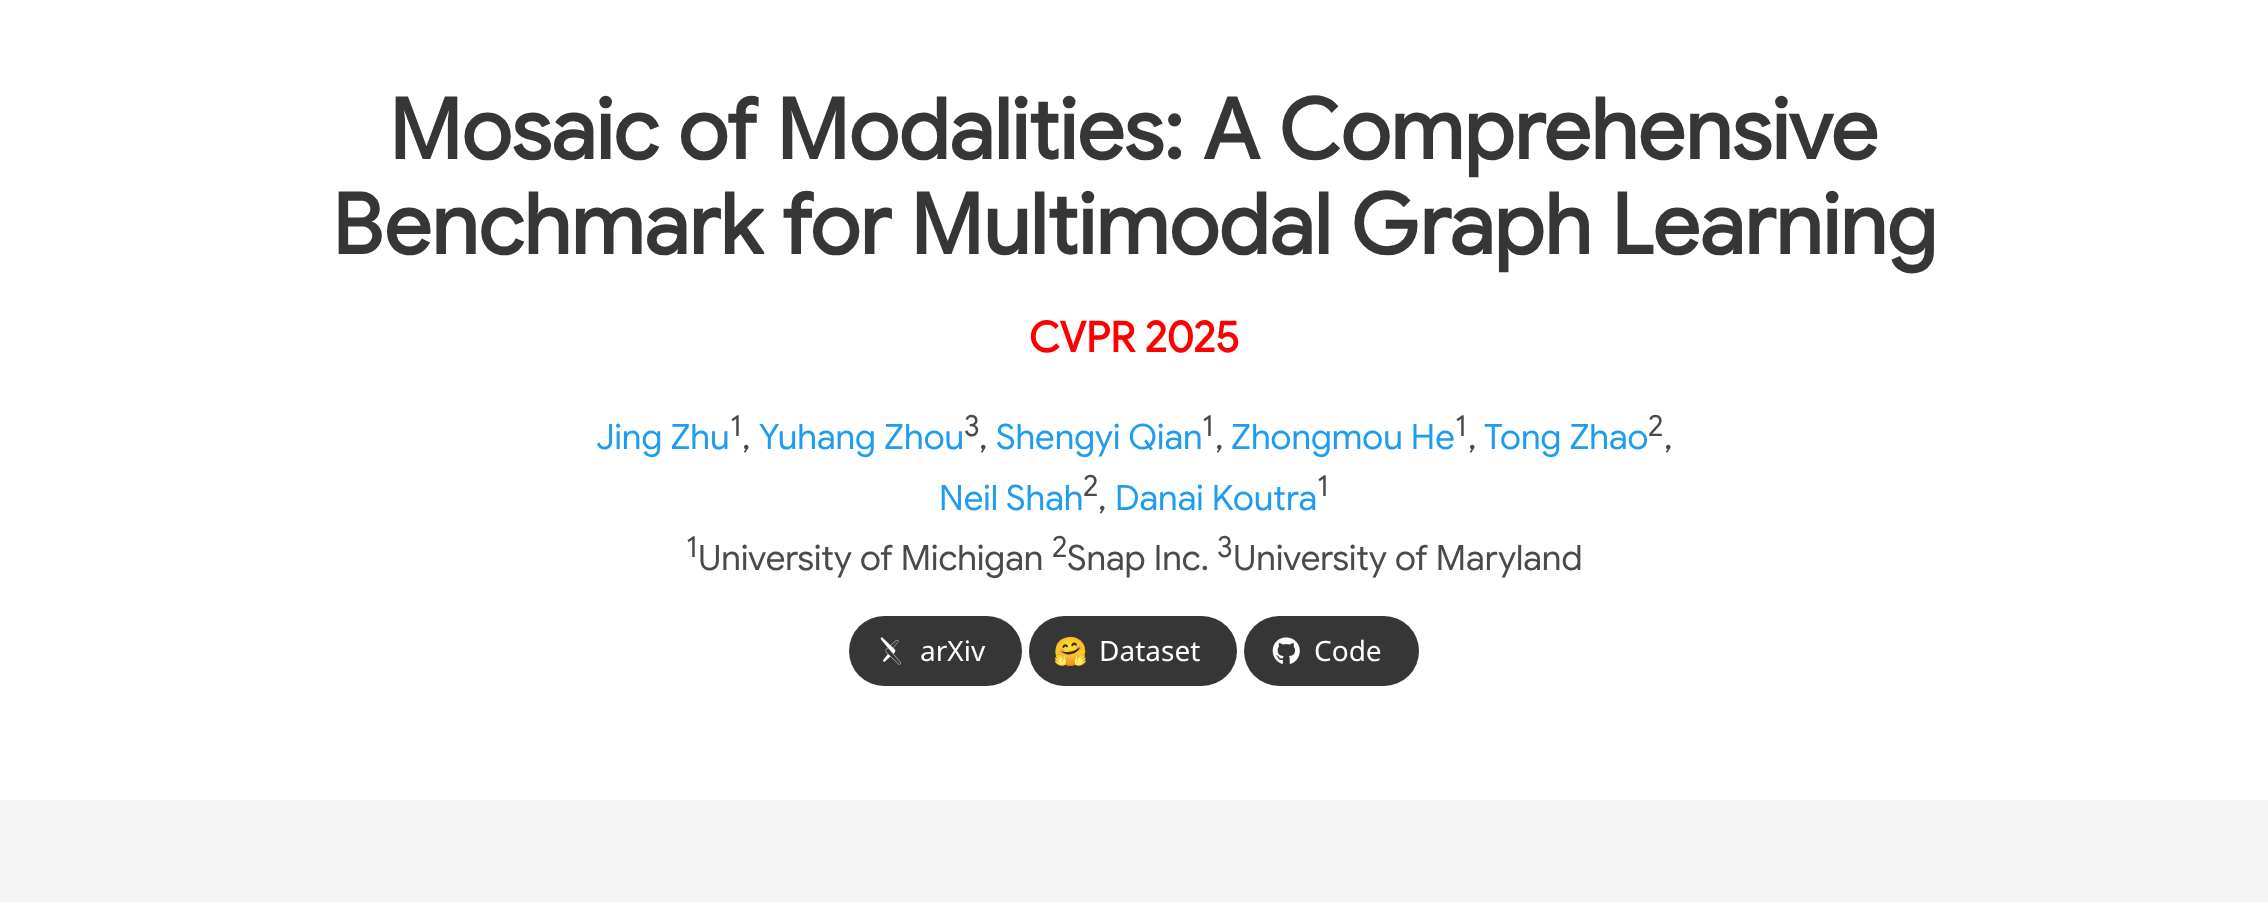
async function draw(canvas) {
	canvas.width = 2268;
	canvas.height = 902;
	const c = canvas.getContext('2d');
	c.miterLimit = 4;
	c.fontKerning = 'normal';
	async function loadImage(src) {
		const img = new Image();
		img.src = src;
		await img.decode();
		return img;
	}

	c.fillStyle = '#fff';
	c.fillRect(0, 0, 2268, 902);
	c.font = 'bold 84px Google Sans';
	c.fillStyle = '#363636';
	c.fillText('Mosaic of Modalities: A Comprehensive', 389, 159);
	c.fillText('Benchmark for Multimodal Graph Learning', 332, 254);
	c.font = 'bold 42px Google Sans';
	c.fillStyle = '#f00';
	c.fillText('CVPR 2025', 1029, 352);
	c.font = '35px Google Sans';
	c.fillStyle = '#209cee';
	c.fillText('Jing Zhu', 596, 449);
	c.font = '29px Google Sans';
	c.fillStyle = '#4a4a4a';
	c.fillText('1', 730, 436);
	c.font = '35px Google Sans';
	c.fillText(',', 742, 449);
	c.fillStyle = '#209cee';
	c.fillText('Yuhang Zhou', 759, 449);
	c.font = '29px Google Sans';
	c.fillStyle = '#4a4a4a';
	c.fillText('3', 964, 436);
	c.font = '35px Google Sans';
	c.fillText(',', 979, 449);
	c.fillStyle = '#209cee';
	c.fillText('Shengyi Qian', 996, 449);
	c.font = '29px Google Sans';
	c.fillStyle = '#4a4a4a';
	c.fillText('1', 1202, 436);
	c.font = '35px Google Sans';
	c.fillText(',', 1215, 449);
	c.fillStyle = '#209cee';
	c.fillText('Zhongmou He', 1231, 449);
	c.font = '29px Google Sans';
	c.fillStyle = '#4a4a4a';
	c.fillText('1', 1455, 436);
	c.font = '35px Google Sans';
	c.fillText(',', 1468, 449);
	c.fillStyle = '#209cee';
	c.fillText('Tong Zhao', 1484, 449);
	c.font = '29px Google Sans';
	c.fillStyle = '#4a4a4a';
	c.fillText('2', 1648, 436);
	c.font = '35px Google Sans';
	c.fillText(',', 1664, 449);
	c.fillStyle = '#209cee';
	c.fillText('Neil Shah', 939, 510);
	c.font = '29px Google Sans';
	c.fillStyle = '#4a4a4a';
	c.fillText('2', 1083, 496);
	c.font = '35px Google Sans';
	c.fillText(',', 1098, 510);
	c.fillStyle = '#209cee';
	c.fillText('Danai Koutra', 1115, 510);
	c.font = '29px Google Sans';
	c.fillStyle = '#4a4a4a';
	c.fillText('1', 1317, 496);
	c.fillText('1', 686, 557);
	c.font = '35px Google Sans';
	c.fillText('University of Michigan', 698, 570);
	c.font = '29px Google Sans';
	c.fillText('2', 1052, 557);
	c.font = '35px Google Sans';
	c.fillText('Snap Inc.', 1067, 570);
	c.font = '29px Google Sans';
	c.fillText('3', 1217, 557);
	c.font = '35px Google Sans';
	c.fillText('University of Maryland', 1233, 570);
	c.fillStyle = '#363636';
	c.beginPath();
	c.roundRect(849, 616, 173, 70, 35);
	c.fill();
	c.drawImage(await loadImage('img1.png'), 880, 637, 21, 28);
	c.font = '28px Noto Sans';
	c.fillStyle = '#fff';
	c.fillText('arXiv', 920, 661);
	c.fillStyle = '#363636';
	c.beginPath();
	c.roundRect(1029, 616, 208, 70, 35);
	c.fill();
	c.font = '28px Noto Color Emoji';
	c.fillStyle = '#fff';
	c.fillText('🤗', 1053, 661);
	c.font = '28px Noto Sans';
	c.fillText('Dataset', 1099, 661);
	c.fillStyle = '#363636';
	c.beginPath();
	c.roundRect(1244, 616, 175, 70, 35);
	c.fill();
	c.drawImage(await loadImage('img2.png'), 1272, 637, 28, 27);
	c.fillStyle = '#fff';
	c.fillText('Code', 1314, 661);
	c.fillStyle = '#f5f5f5';
	c.fillRect(0, 800, 2268, 102);
}

draw(document.querySelector('canvas'));
